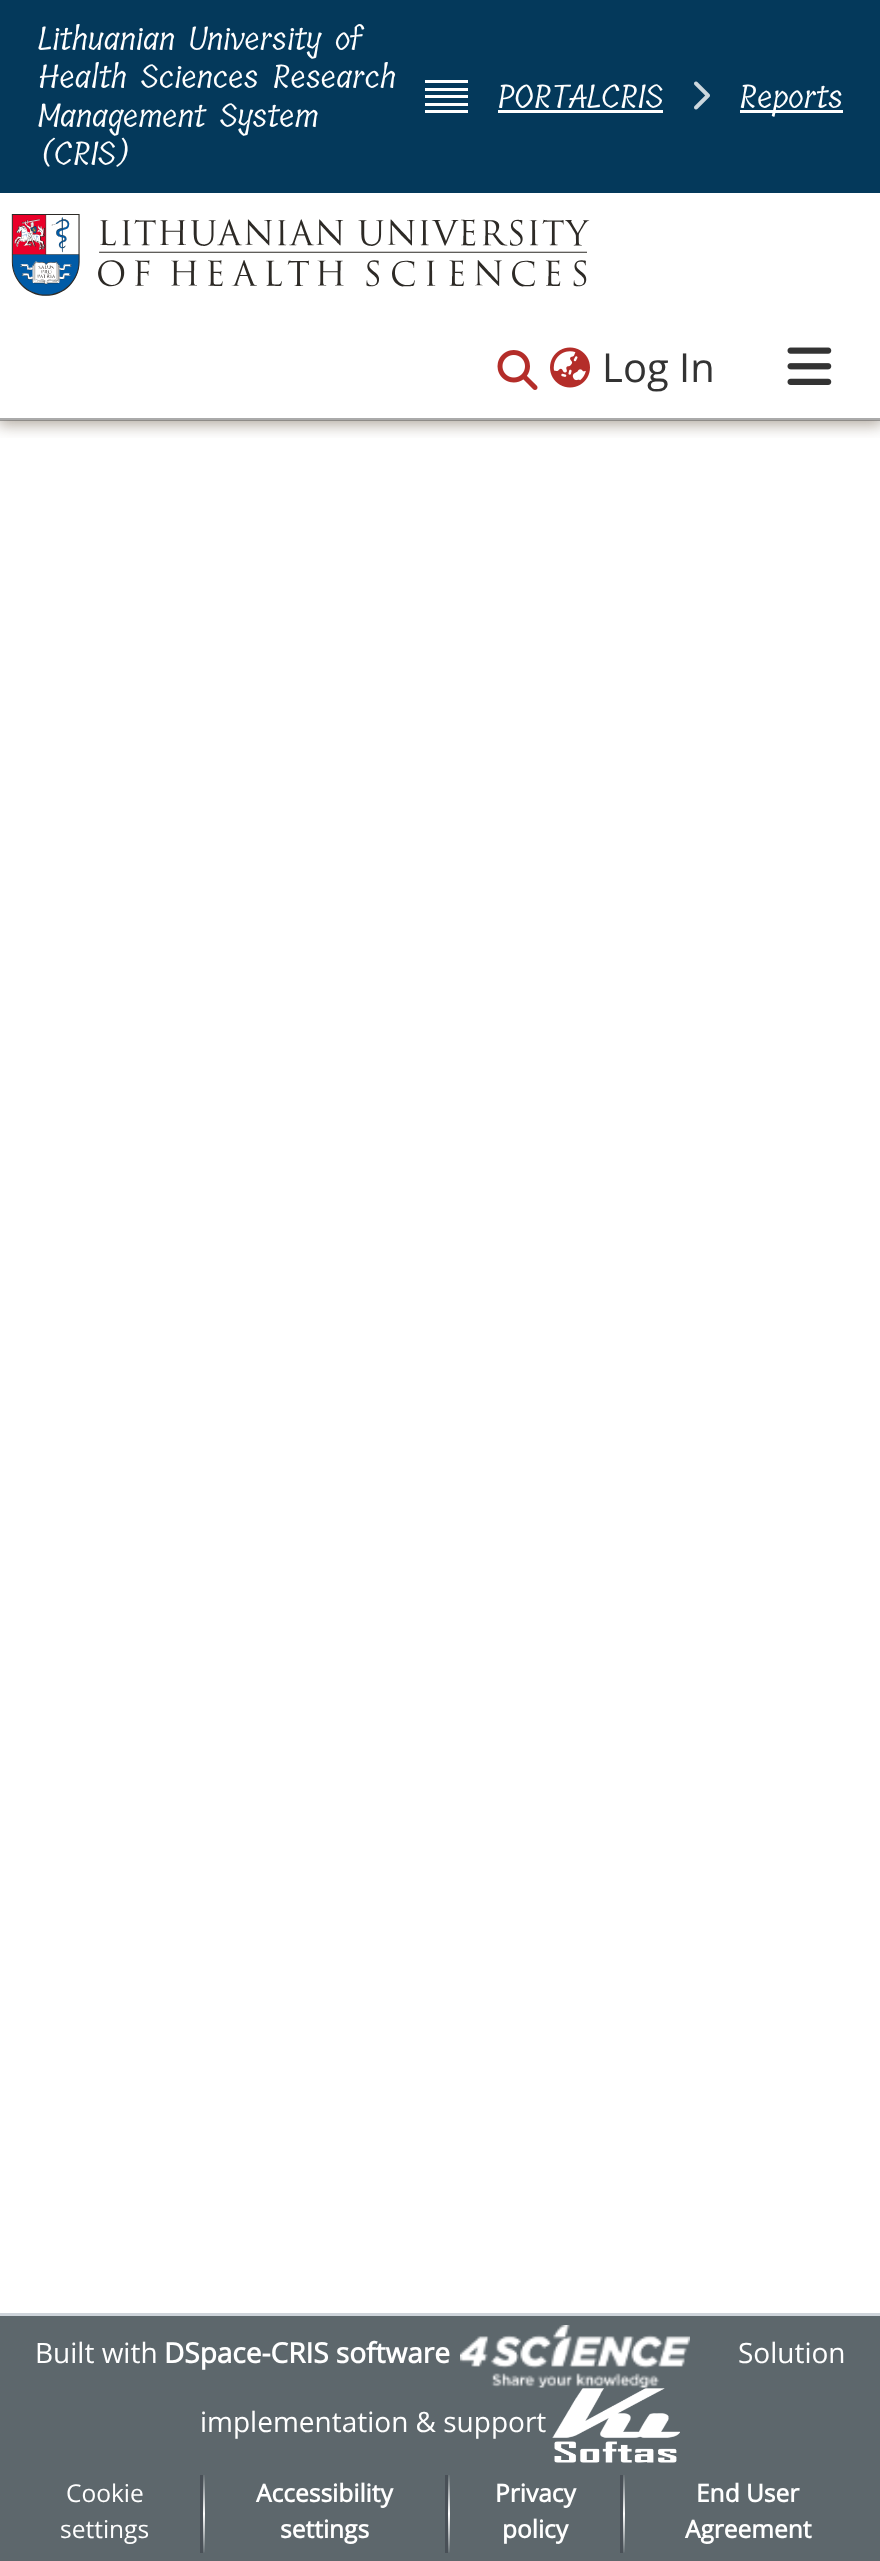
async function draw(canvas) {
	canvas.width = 880;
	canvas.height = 2561;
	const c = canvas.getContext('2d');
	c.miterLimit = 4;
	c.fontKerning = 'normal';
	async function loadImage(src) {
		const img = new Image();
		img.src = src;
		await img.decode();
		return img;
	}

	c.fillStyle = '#fff';
	c.fillRect(0, 0, 880, 2561);
	c.save();
	c.beginPath();
	c.rect(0, 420, 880, 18);
	c.clip();
	c.fillStyle = '#68574480';
	c.filter = 'blur(7.5px)';
	c.beginPath();
	c.rect(-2, 0, 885, 425);
	c.fill();
	c.filter = 'none';
	c.restore();
	c.fillStyle = '#55555580';
	c.fillRect(0, 418, 880, 3);
	c.fillStyle = '#04395b';
	c.fillRect(0, 0, 880, 193);
	c.font = '32px Tillana';
	c.fillStyle = '#fff';
	for (const [text, x, y] of [
		['Lithuanian University of', 38, 50],
		['Health Sciences Research', 38, 88],
		['Management System', 38, 127],
		['(CRIS)', 38, 165],
	]) {
		c.fillText(text, x, y);
	}
	for (const [x, y, w, h, color] of [
		[425, 80, 43, 3, '#fff'],
		[425, 88, 43, 3, '#fff'],
		[425, 95, 43, 3, '#fff'],
		[425, 103, 43, 3, '#fff'],
		[425, 110, 43, 3, '#fff'],
	]) {
		c.fillStyle = color;
		c.fillRect(x, y, w, h);
	}
	c.fillText('PORTALCRIS', 497, 108);
	c.fillRect(498, 110, 165, 3);
	c.drawImage(await loadImage('img1.png'), 694, 81, 16, 29);
	c.fillRect(740, 110, 103, 3);
	c.fillText('Reports', 739, 108);
	c.drawImage(await loadImage('img2.png'), 11, 214, 579, 82);
	c.drawImage(await loadImage('img3.png'), 497, 350, 41, 40);
	c.drawImage(await loadImage('img4.png'), 550, 347, 40, 41);
	c.font = '40px Open Sans';
	c.fillStyle = '#333';
	c.fillText('Log In', 602, 382);
	c.drawImage(await loadImage('img5.png'), 787, 347, 45, 38);
	c.fillStyle = '#5d676c';
	c.fillRect(0, 2316, 880, 245);
	c.fillStyle = '#ced4da';
	c.fillRect(0, 2313, 880, 3);
	c.font = '28px Open Sans';
	c.fillStyle = '#fff';
	c.fillText('Built with', 35, 2363);
	c.font = 'bold 28px Open Sans';
	c.fillText('DSpace-CRIS software', 164, 2363);
	c.drawImage(await loadImage('img6.png'), 460, 2325, 230, 63);
	c.font = '28px Open Sans';
	c.fillText('Solution', 738, 2363);
	c.fillText('implementation & support', 200, 2432);
	c.drawImage(await loadImage('img7.png'), 552, 2388, 128, 75);
	c.drawImage(await loadImage('img8.png'), 203, 2475, 2, 78);
	c.font = '24.5px Open Sans';
	c.fillText('Cookie', 66, 2502);
	c.fillText('settings', 60, 2538);
	c.fillStyle = '#495057';
	c.fillRect(200, 2475, 3, 78);
	c.drawImage(await loadImage('img9.png'), 448, 2475, 2, 78);
	c.font = 'bold 24.5px Open Sans';
	c.fillStyle = '#fff';
	c.fillText('Accessibility', 256, 2502);
	c.fillText('settings', 280, 2538);
	c.fillStyle = '#495057';
	c.fillRect(445, 2475, 3, 78);
	c.drawImage(await loadImage('img8.png'), 623, 2475, 2, 78);
	c.fillStyle = '#fff';
	c.fillText('Privacy', 495, 2502);
	c.fillText('policy', 502, 2538);
	c.fillStyle = '#495057';
	c.fillRect(620, 2475, 3, 78);
	c.fillStyle = '#fff';
	c.fillText('End User', 696, 2502);
	c.fillText('Agreement', 685, 2538);
}

draw(document.querySelector('canvas'));
